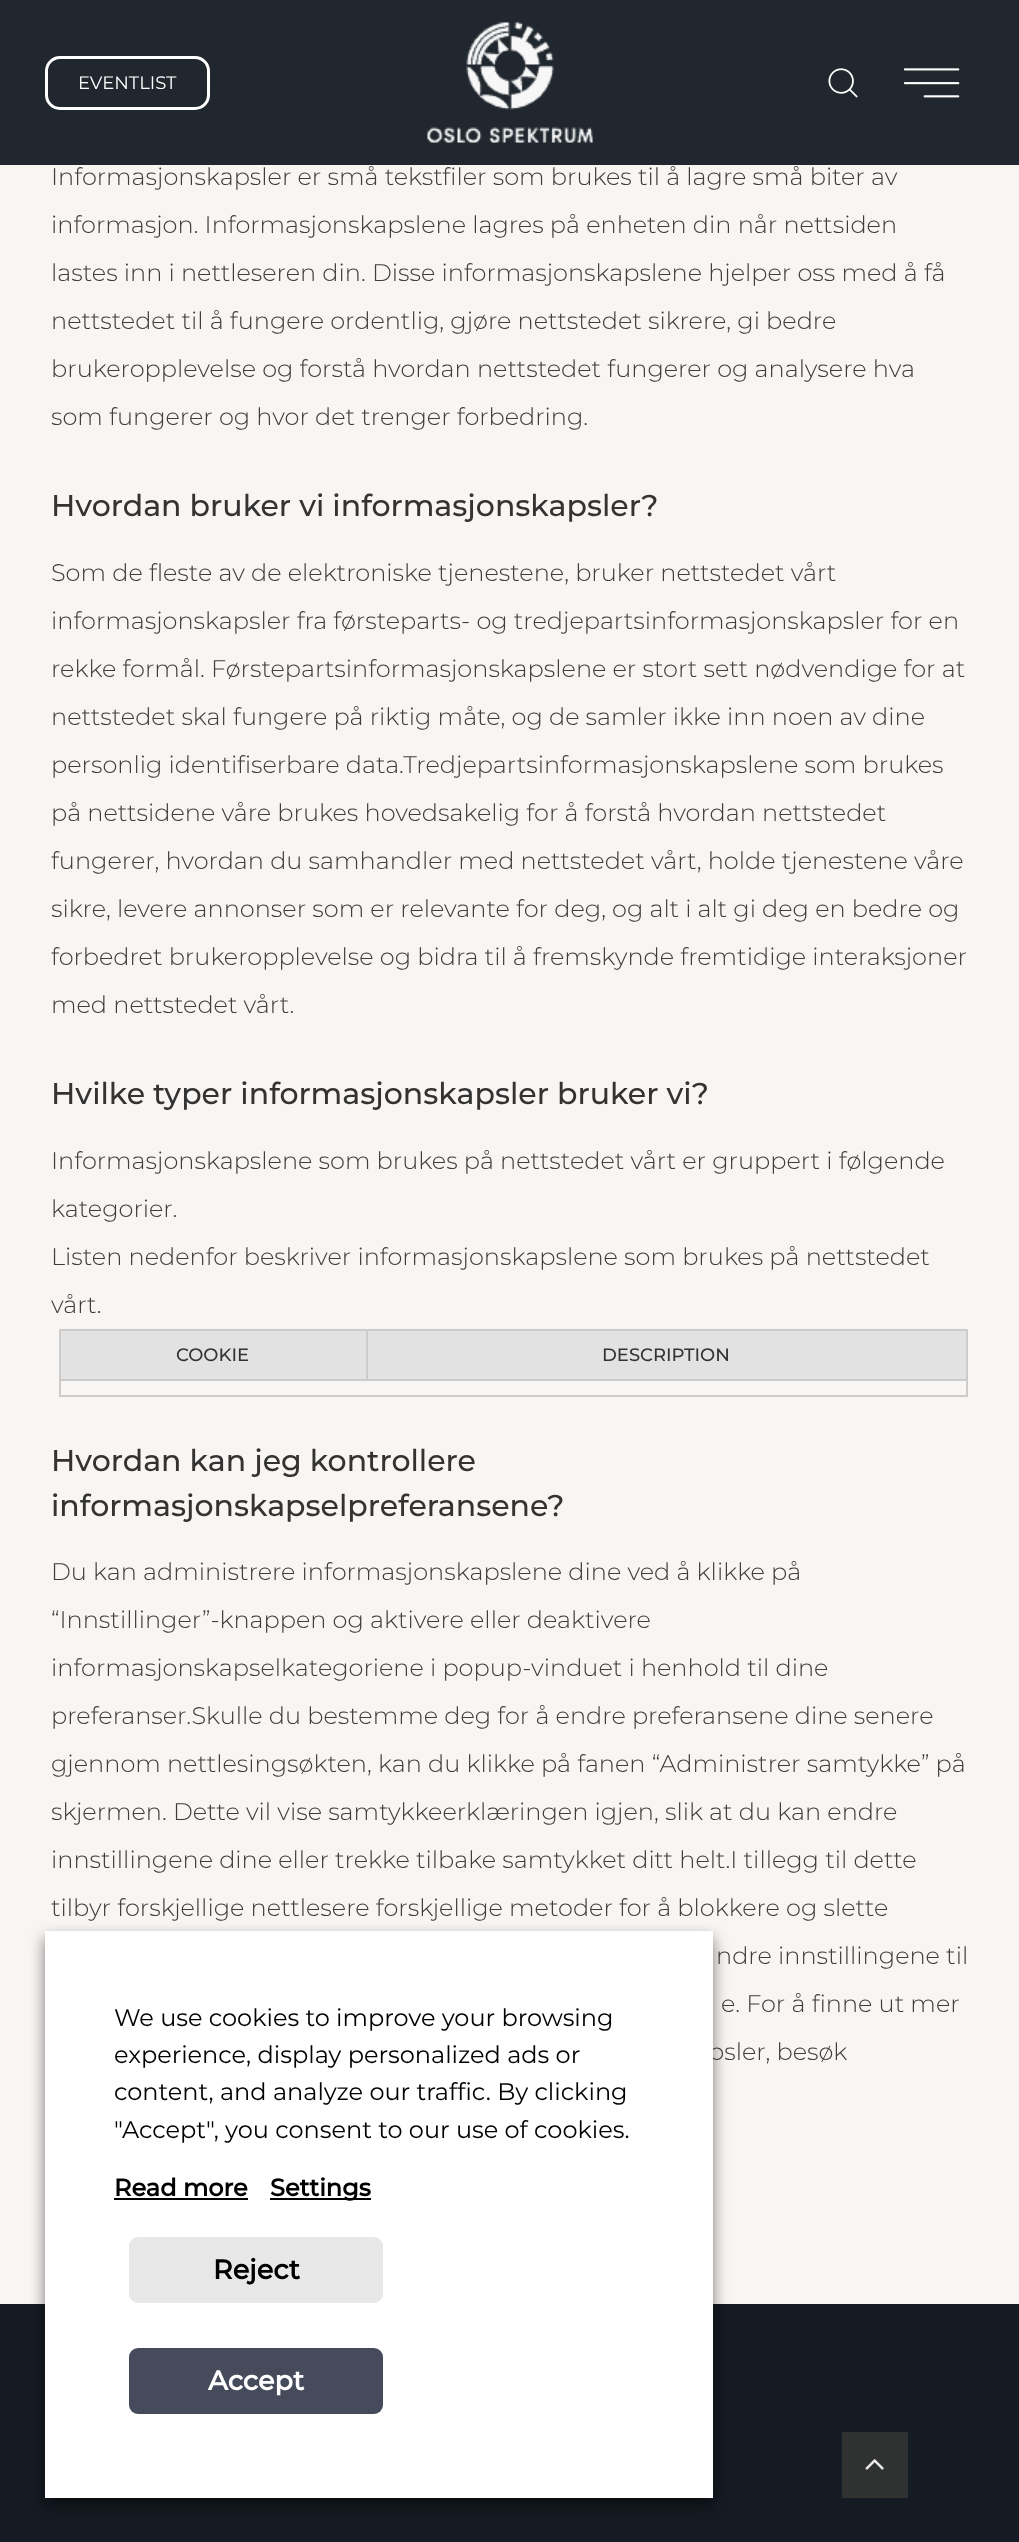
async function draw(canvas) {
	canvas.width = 1019;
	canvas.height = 2542;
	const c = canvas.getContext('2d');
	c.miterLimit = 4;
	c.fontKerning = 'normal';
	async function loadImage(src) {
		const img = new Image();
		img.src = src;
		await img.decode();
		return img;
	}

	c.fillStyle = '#f8f5f3';
	c.fillRect(0, 0, 1019, 2542);
	c.fillStyle = '#20272e';
	c.fillRect(0, 0, 1019, 165);
	c.beginPath();
	c.roundRect(46.5, 57.5, 162, 51, 13.5);
	c.strokeStyle = '#fff';
	c.lineWidth = 3;
	c.stroke();
	c.font = '18px Montserrat';
	c.fillStyle = '#fff';
	c.fillText('EVENTLIST', 78, 89);
	c.drawImage(await loadImage('img1.png'), 427, 22, 166, 121);
	c.drawImage(await loadImage('img2.png'), 828, 68, 30, 30);
	c.drawImage(await loadImage('img3.png'), 903, 68, 57, 30);
	c.font = '300 24px Montserrat';
	c.fillStyle = '#3d3d3d';
	for (const [text, x, y] of [
		['Informasjonskapsler er små tekstfiler som brukes til å lagre små biter av', 51, 185],
		['informasjon. Informasjonskapslene lagres på enheten din når nettsiden', 51, 233],
		['lastes inn i nettleseren din. Disse informasjonskapslene hjelper oss med å få', 51, 281],
		['nettstedet til å fungere ordentlig, gjøre nettstedet sikrere, gi bedre', 51, 329],
		['brukeropplevelse og forstå hvordan nettstedet fungerer og analysere hva', 51, 377],
		['som fungerer og hvor det trenger forbedring.', 51, 425],
	]) {
		c.fillText(text, x, y);
	}
	c.font = '500 30px Montserrat';
	c.fillStyle = '#333';
	c.fillText('Hvordan bruker vi informasjonskapsler?', 51, 516);
	c.font = '300 24px Montserrat';
	c.fillStyle = '#3d3d3d';
	for (const [text, x, y] of [
		['Som de fleste av de elektroniske tjenestene, bruker nettstedet vårt', 51, 581],
		['informasjonskapsler fra førsteparts- og tredjepartsinformasjonskapsler for en', 51, 629],
		['rekke formål. Førstepartsinformasjonskapslene er stort sett nødvendige for at', 51, 677],
		['nettstedet skal fungere på riktig måte, og de samler ikke inn noen av dine', 51, 725],
		['personlig identifiserbare data.Tredjepartsinformasjonskapslene som brukes', 51, 773],
		['på nettsidene våre brukes hovedsakelig for å forstå hvordan nettstedet', 51, 821],
		['fungerer, hvordan du samhandler med nettstedet vårt, holde tjenestene våre', 51, 869],
		['sikre, levere annonser som er relevante for deg, og alt i alt gi deg en bedre og', 51, 917],
		['forbedret brukeropplevelse og bidra til å fremskynde fremtidige interaksjoner', 51, 965],
		['med nettstedet vårt.', 51, 1013],
	]) {
		c.fillText(text, x, y);
	}
	c.font = '500 30px Montserrat';
	c.fillStyle = '#333';
	c.fillText('Hvilke typer informasjonskapsler bruker vi?', 51, 1104);
	c.font = '300 24px Montserrat';
	c.fillStyle = '#3d3d3d';
	for (const [text, x, y] of [
		['Informasjonskapslene som brukes på nettstedet vårt er gruppert i følgende', 51, 1169],
		['kategorier.', 51, 1217],
		['Listen nedenfor beskriver informasjonskapslene som brukes på nettstedet', 51, 1265],
		['vårt.', 51, 1313],
	]) {
		c.fillText(text, x, y);
	}
	for (const [x, y, w, h, color] of [
		[59, 1329, 909, 2, '#ccc'],
		[59, 1329, 2, 68, '#ccc'],
		[966, 1329, 2, 68, '#ccc'],
		[59, 1395, 909, 2, '#ccc'],
		[61, 1331, 305, 48, '#e2e2e2'],
		[366, 1379, 602, 2, '#ccc'],
		[366, 1329, 2, 51, '#ccc'],
		[59, 1379, 309, 2, '#ccc'],
	]) {
		c.fillStyle = color;
		c.fillRect(x, y, w, h);
	}
	c.font = '500 18px Montserrat';
	c.fillStyle = '#333';
	c.fillText('COOKIE', 176, 1361);
	c.fillStyle = '#e2e2e2';
	c.fillRect(368, 1331, 598, 48);
	c.fillStyle = '#333';
	c.fillText('DESCRIPTION', 602, 1361);
	c.font = '500 30px Montserrat';
	c.fillText('Hvordan kan jeg kontrollere', 51, 1471);
	c.fillText('informasjonskapselpreferansene?', 51, 1516);
	c.font = '300 24px Montserrat';
	c.fillStyle = '#3d3d3d';
	for (const [text, x, y] of [
		['Du kan administrere informasjonskapslene dine ved å klikke på', 51, 1580],
		['“Innstillinger”-knappen og aktivere eller deaktivere', 51, 1628],
		['informasjonskapselkategoriene i popup-vinduet i henhold til dine', 51, 1676],
		['preferanser.Skulle du bestemme deg for å endre preferansene dine senere', 51, 1724],
		['gjennom nettlesingsøkten, kan du klikke på fanen “Administrer samtykke” på', 51, 1772],
		['skjermen. Dette vil vise samtykkeerklæringen igjen, slik at du kan endre', 51, 1820],
		['innstillingene dine eller trekke tilbake samtykket ditt helt.I tillegg til dette', 51, 1868],
		['tilbyr forskjellige nettlesere forskjellige metoder for å blokkere og slette', 51, 1916],
		['ndre innstillingene til', 716, 1964],
		['e. For å finne ut mer', 721, 2012],
		['psler, besøk', 708, 2060],
	]) {
		c.fillText(text, x, y);
	}
	c.fillStyle = '#141b22';
	c.fillRect(0, 2304, 1019, 238);
	c.fillStyle = '#00000080';
	c.filter = 'blur(7.5px)';
	c.beginPath();
	c.rect(45, 1938, 668, 567);
	c.fill();
	c.filter = 'none';
	c.fillStyle = '#fff';
	c.fillRect(45, 1931, 668, 567);
	c.font = '24px Montserrat';
	c.fillStyle = '#000';
	for (const [text, x, y] of [
		['We use cookies to improve your browsing', 114, 2026],
		['experience, display personalized ads or', 114, 2063],
		['content, and analyze our traffic. By clicking', 114, 2100],
		['"Accept", you consent to our use of cookies.', 114, 2138],
	]) {
		c.fillText(text, x, y);
	}
	c.font = 'bold 24px Montserrat';
	c.fillText('Read more', 114, 2196);
	c.fillRect(114, 2198, 134, 2);
	c.fillRect(270, 2198, 101, 2);
	c.fillText('Settings', 270, 2196);
	c.fillStyle = '#e8e8e8';
	c.beginPath();
	c.roundRect(129, 2237, 254, 66, 9);
	c.fill();
	c.font = 'bold 27px Montserrat';
	c.fillStyle = '#000';
	c.fillText('Reject', 213, 2279);
	c.fillStyle = '#454b5b';
	c.beginPath();
	c.roundRect(129, 2348, 254, 66, 9);
	c.fill();
	c.fillStyle = '#fff';
	c.fillText('Accept', 208, 2390);
	c.fillStyle = '#303131';
	c.fillRect(842, 2432, 66, 66);
	c.drawImage(await loadImage('img4.png'), 865, 2459, 19, 11);
}

draw(document.querySelector('canvas'));
